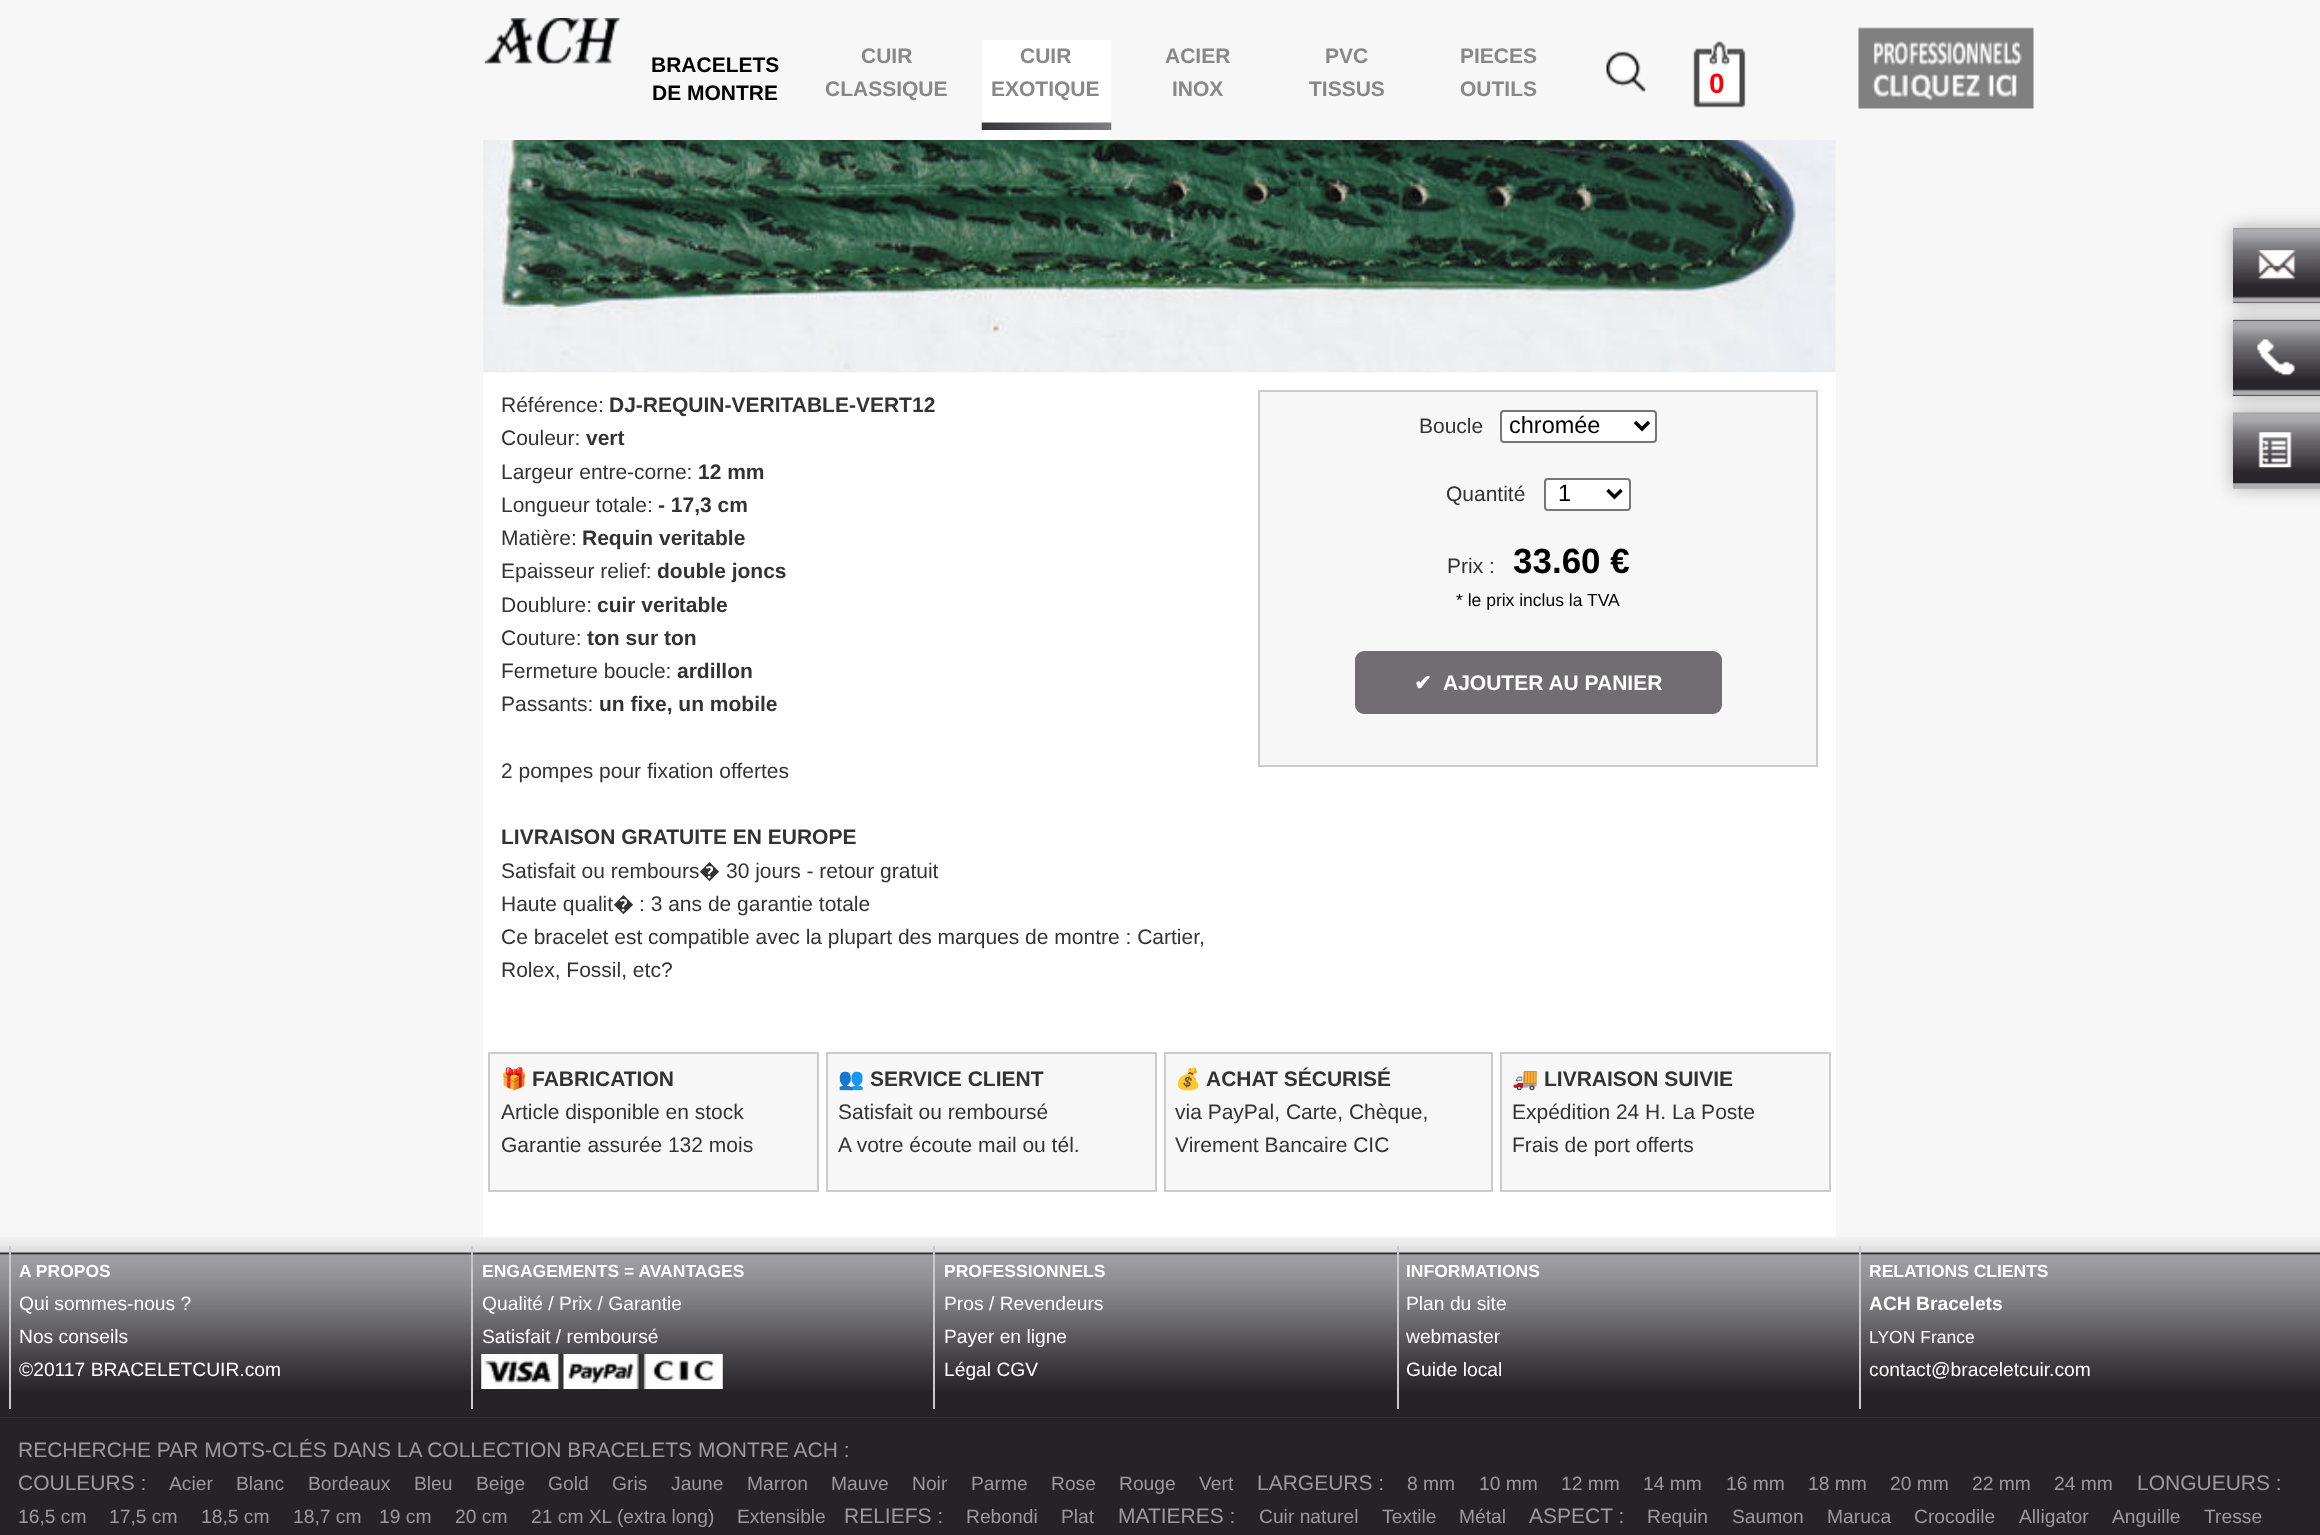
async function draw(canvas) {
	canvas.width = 2320;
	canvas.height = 1535;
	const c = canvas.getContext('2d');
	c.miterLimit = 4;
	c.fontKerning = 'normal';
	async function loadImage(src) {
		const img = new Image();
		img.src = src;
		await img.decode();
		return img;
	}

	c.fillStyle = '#f7f7f7';
	c.fillRect(0, 0, 2320, 1535);
	c.drawImage(await loadImage('img1.png'), 484, 18, 136, 46);
	c.font = 'bold 21px Liberation Sans';
	c.fillStyle = '#000';
	c.fillText('BRACELETS', 651, 72);
	c.fillText('DE MONTRE', 652, 100);
	c.fillStyle = '#888';
	c.fillText('CUIR', 861, 63);
	c.fillText('CLASSIQUE', 825, 96);
	c.fillStyle = '#fff';
	c.fillRect(982, 40, 129, 100);
	c.fillStyle = '#888';
	c.fillText('CUIR', 1020, 63);
	c.fillText('EXOTIQUE', 991, 96);
	c.drawImage(await loadImage('img2.png'), 981, 122, 131, 8);
	for (const [text, x, y] of [
		['ACIER', 1165, 63],
		['INOX', 1172, 96],
		['PVC', 1325, 63],
		['TISSUS', 1309, 96],
		['PIECES', 1460, 63],
		['OUTILS', 1460, 96],
	]) {
		c.fillText(text, x, y);
	}
	c.drawImage(await loadImage('img3.png'), 1606, 51, 40, 41);
	c.drawImage(await loadImage('img4.png'), 1693, 41, 53, 67);
	c.font = 'bold 28px Liberation Sans';
	c.fillStyle = '#f00';
	c.fillText('0', 1709, 93);
	c.drawImage(await loadImage('img5.png'), 1858, 27, 176, 82);
	c.fillStyle = '#0000004d';
	c.filter = 'blur(9px)';
	c.beginPath();
	c.rect(2233, 228, 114, 75);
	c.fill();
	c.filter = 'none';
	c.fillStyle = '#000';
	c.fillRect(2233, 302, 87, 1);
	c.drawImage(await loadImage('img6.png'), 2233, 228, 87, 76);
	c.drawImage(await loadImage('img7.png'), 2258, 250, 38, 30);
	c.fillStyle = '#0000004d';
	c.filter = 'blur(9px)';
	c.beginPath();
	c.rect(2233, 320, 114, 76);
	c.fill();
	c.filter = 'none';
	c.fillStyle = '#000';
	c.fillRect(2233, 320, 87, 76);
	c.drawImage(await loadImage('img8.png'), 2233, 319, 87, 77);
	c.drawImage(await loadImage('img9.png'), 2257, 339, 38, 37);
	c.fillStyle = '#0000004d';
	c.filter = 'blur(9px)';
	c.beginPath();
	c.rect(2233, 413, 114, 75);
	c.fill();
	c.filter = 'none';
	c.drawImage(await loadImage('img10.png'), 2233, 412, 87, 77);
	c.drawImage(await loadImage('img11.png'), 2258, 432, 34, 36);
	c.fillStyle = '#fff';
	c.fillRect(483, 140, 1353, 1097);
	c.drawImage(await loadImage('img12.png'), 483, 140, 1353, 233);
	c.font = '21px Liberation Sans';
	c.fillStyle = '#333';
	c.fillText('Référence:', 501, 412);
	c.font = 'bold 21px Liberation Sans';
	c.fillText('DJ-REQUIN-VERITABLE-VERT12', 609, 412);
	c.font = '21px Liberation Sans';
	c.fillText('Couleur:', 501, 445);
	c.font = 'bold 21px Liberation Sans';
	c.fillText('vert', 586, 445);
	c.font = '21px Liberation Sans';
	c.fillText('Largeur entre-corne:', 501, 479);
	c.font = 'bold 21px Liberation Sans';
	c.fillText('12 mm', 698, 479);
	c.font = '21px Liberation Sans';
	c.fillText('Longueur totale:', 501, 512);
	c.font = 'bold 21px Liberation Sans';
	c.fillText('- 17,3 cm', 658, 512);
	c.font = '21px Liberation Sans';
	c.fillText('Matière:', 501, 545);
	c.font = 'bold 21px Liberation Sans';
	c.fillText('Requin veritable', 582, 545);
	c.font = '21px Liberation Sans';
	c.fillText('Epaisseur relief:', 501, 578);
	c.font = 'bold 21px Liberation Sans';
	c.fillText('double joncs', 657, 578);
	c.font = '21px Liberation Sans';
	c.fillText('Doublure:', 501, 612);
	c.font = 'bold 21px Liberation Sans';
	c.fillText('cuir veritable', 597, 612);
	c.font = '21px Liberation Sans';
	c.fillText('Couture:', 501, 645);
	c.font = 'bold 21px Liberation Sans';
	c.fillText('ton sur ton', 587, 645);
	c.font = '21px Liberation Sans';
	c.fillText('Fermeture boucle:', 501, 678);
	c.font = 'bold 21px Liberation Sans';
	c.fillText('ardillon', 677, 678);
	c.font = '21px Liberation Sans';
	c.fillText('Passants:', 501, 711);
	c.font = 'bold 21px Liberation Sans';
	c.fillText('un fixe, un mobile', 599, 711);
	c.font = '21px Liberation Sans';
	c.fillText('2 pompes pour fixation offertes', 501, 778);
	c.font = 'bold 21px Liberation Sans';
	c.fillText('LIVRAISON GRATUITE EN EUROPE', 501, 844);
	c.font = '21px Liberation Sans';
	c.fillText('Satisfait ou rembours', 501, 878);
	c.font = '21px Noto Sans';
	c.fillText('�', 699, 878);
	c.font = '21px Liberation Sans';
	c.fillText('30 jours - retour gratuit', 726, 878);
	c.fillText('Haute qualit', 501, 911);
	c.font = '21px Noto Sans';
	c.fillText('�', 613, 911);
	c.font = '21px Liberation Sans';
	for (const [text, x, y] of [
		[': 3 ans de garantie totale', 639, 911],
		['Ce bracelet est compatible avec la plupart des marques de montre : Cartier,', 501, 944],
		['Rolex, Fossil, etc?', 501, 977],
	]) {
		c.fillText(text, x, y);
	}
	c.fillStyle = '#f7f7f7';
	c.beginPath();
	c.rect(1259, 391, 558, 375);
	c.fill();
	c.strokeStyle = '#ccc';
	c.lineWidth = 2;
	c.stroke();
	c.fillStyle = '#333';
	c.fillText('Boucle', 1419, 433);
	c.fillStyle = '#fff';
	c.beginPath();
	c.roundRect(1501, 411, 155, 31, 3);
	c.fill();
	c.strokeStyle = '#767676';
	c.stroke();
	c.beginPath();
	c.moveTo(1635, 422);
	c.lineTo(1642, 429);
	c.lineTo(1649, 422);
	c.strokeStyle = '#000';
	c.lineWidth = 3.5;
	c.stroke();
	c.font = '23.5px Liberation Sans';
	c.fillStyle = '#000';
	c.fillText('chromée', 1509, 433);
	c.font = '21px Liberation Sans';
	c.fillStyle = '#333';
	c.fillText('Quantité', 1446, 501);
	c.fillStyle = '#fff';
	c.beginPath();
	c.roundRect(1545, 479, 85, 31, 3);
	c.fill();
	c.strokeStyle = '#767676';
	c.lineWidth = 2;
	c.stroke();
	c.beginPath();
	c.moveTo(1607.5, 490);
	c.lineTo(1614.5, 497);
	c.lineTo(1621.5, 490);
	c.strokeStyle = '#000';
	c.lineWidth = 3.5;
	c.stroke();
	c.font = '23.5px Liberation Sans';
	c.fillStyle = '#000';
	c.fillText('1', 1558, 501);
	c.font = '21px Liberation Sans';
	c.fillStyle = '#333';
	c.fillText('Prix :', 1447, 573);
	c.font = 'bold 35px Liberation Sans';
	c.fillStyle = '#000';
	c.fillText('33.60 €', 1513, 573);
	c.font = '17.5px Liberation Sans';
	c.fillText('* le prix inclus la TVA', 1456, 606);
	c.fillStyle = '#726d72';
	c.beginPath();
	c.roundRect(1355, 651, 367, 63, 9);
	c.fill();
	c.font = 'bold 21px DejaVu Sans';
	c.fillStyle = '#fff';
	c.fillText('✔', 1414, 690);
	c.font = 'bold 21px Liberation Sans';
	c.fillText('AJOUTER AU PANIER', 1443, 690);
	c.fillStyle = '#f7f7f7';
	c.beginPath();
	c.rect(489, 1053, 329, 138);
	c.fill();
	c.strokeStyle = '#ccc';
	c.lineWidth = 2;
	c.stroke();
	c.font = '21px Noto Color Emoji';
	c.fillStyle = '#333';
	c.fillText('🎁', 501, 1086);
	c.font = 'bold 21px Liberation Sans';
	c.fillText('FABRICATION', 532, 1086);
	c.font = '21px Liberation Sans';
	c.fillText('Article disponible en stock', 501, 1119);
	c.fillText('Garantie assurée 132 mois', 501, 1152);
	c.fillStyle = '#f7f7f7';
	c.beginPath();
	c.rect(827, 1053, 329, 138);
	c.fill();
	c.stroke();
	c.font = 'bold 21px Noto Color Emoji';
	c.fillStyle = '#333';
	c.fillText('👥', 838, 1086);
	c.font = 'bold 21px Liberation Sans';
	c.fillText('SERVICE CLIENT', 870, 1086);
	c.font = '21px Liberation Sans';
	c.fillText('Satisfait ou remboursé', 838, 1119);
	c.fillText('A votre écoute mail ou tél.', 838, 1152);
	c.fillStyle = '#f7f7f7';
	c.beginPath();
	c.rect(1165, 1053, 327, 138);
	c.fill();
	c.stroke();
	c.font = 'bold 21px Noto Color Emoji';
	c.fillStyle = '#333';
	c.fillText('💰', 1175, 1086);
	c.font = 'bold 21px Liberation Sans';
	c.fillText('ACHAT SÉCURISÉ', 1206, 1086);
	c.font = '21px Liberation Sans';
	c.fillText('via PayPal, Carte, Chèque,', 1175, 1119);
	c.fillText('Virement Bancaire CIC', 1175, 1152);
	c.fillStyle = '#f7f7f7';
	c.beginPath();
	c.rect(1501, 1053, 329, 138);
	c.fill();
	c.stroke();
	c.font = 'bold 21px Noto Color Emoji';
	c.fillStyle = '#333';
	c.fillText('🚚', 1512, 1086);
	c.font = 'bold 21px Liberation Sans';
	c.fillText('LIVRAISON SUIVIE', 1544, 1086);
	c.font = '21px Liberation Sans';
	c.fillText('Expédition 24 H. La Poste', 1512, 1119);
	c.fillText('Frais de port offerts', 1512, 1152);
	c.fillRect(0, 1417, 2320, 1);
	c.drawImage(await loadImage('img13.png'), 0, 1237, 2320, 180);
	c.fillStyle = '#c9c9c9';
	c.fillRect(9, 1246, 2, 163);
	c.font = 'bold 17.5px Liberation Sans';
	c.fillStyle = '#fff';
	c.fillText('A PROPOS', 19, 1277);
	c.font = '19.25px Liberation Sans';
	for (const [text, x, y] of [
		['Qui sommes-nous ?', 19, 1310],
		['Nos conseils', 19, 1343],
		['©20117 BRACELETCUIR.com', 19, 1376],
	]) {
		c.fillText(text, x, y);
	}
	c.fillStyle = '#c9c9c9';
	c.fillRect(471, 1246, 2, 163);
	c.font = 'bold 17.5px Liberation Sans';
	c.fillStyle = '#fff';
	c.fillText('ENGAGEMENTS = AVANTAGES', 482, 1277);
	c.font = '19.25px Liberation Sans';
	c.fillText('Qualité / Prix / Garantie', 482, 1310);
	c.fillText('Satisfait / remboursé', 482, 1343);
	c.drawImage(await loadImage('img14.png'), 481, 1354, 242, 35);
	c.fillStyle = '#c9c9c9';
	c.fillRect(933, 1246, 2, 163);
	c.font = 'bold 17.5px Liberation Sans';
	c.fillStyle = '#fff';
	c.fillText('PROFESSIONNELS', 944, 1277);
	c.font = '19.25px Liberation Sans';
	for (const [text, x, y] of [
		['Pros / Revendeurs', 944, 1310],
		['Payer en ligne', 944, 1343],
		['Légal CGV', 944, 1376],
	]) {
		c.fillText(text, x, y);
	}
	c.fillStyle = '#c9c9c9';
	c.fillRect(1397, 1246, 2, 163);
	c.font = 'bold 17.5px Liberation Sans';
	c.fillStyle = '#fff';
	c.fillText('INFORMATIONS', 1406, 1277);
	c.font = '19.25px Liberation Sans';
	for (const [text, x, y] of [
		['Plan du site', 1406, 1310],
		['webmaster', 1406, 1343],
		['Guide local', 1406, 1376],
	]) {
		c.fillText(text, x, y);
	}
	c.fillStyle = '#c9c9c9';
	c.fillRect(1859, 1246, 2, 163);
	c.font = 'bold 17.5px Liberation Sans';
	c.fillStyle = '#fff';
	c.fillText('RELATIONS CLIENTS', 1869, 1277);
	c.font = 'bold 19.25px Liberation Sans';
	c.fillText('ACH Bracelets', 1869, 1310);
	c.font = '17.5px Liberation Sans';
	c.fillText('LYON France', 1869, 1343);
	c.font = '19.25px Liberation Sans';
	c.fillText('contact@braceletcuir.com', 1869, 1376);
	c.fillStyle = '#262327';
	c.fillRect(0, 1418, 2320, 117);
	c.font = '21px Liberation Sans';
	c.fillStyle = '#9b9b9b';
	c.fillText('RECHERCHE PAR MOTS-CLÉS DANS LA COLLECTION BRACELETS MONTRE ACH :', 18, 1457);
	c.fillText('COULEURS :', 18, 1490);
	c.font = '19.25px Liberation Sans';
	for (const [text, x, y] of [
		['Acier', 169, 1490],
		['Blanc', 236, 1490],
		['Bordeaux', 308, 1490],
		['Bleu', 414, 1490],
		['Beige', 476, 1490],
		['Gold', 548, 1490],
		['Gris', 612, 1490],
		['Jaune', 671, 1490],
		['Marron', 747, 1490],
		['Mauve', 831, 1490],
		['Noir', 912, 1490],
		['Parme', 971, 1490],
		['Rose', 1051, 1490],
		['Rouge', 1119, 1490],
		['Vert', 1199, 1490],
	]) {
		c.fillText(text, x, y);
	}
	c.font = '21px Liberation Sans';
	c.fillText('LARGEURS :', 1257, 1490);
	c.font = '19.25px Liberation Sans';
	for (const [text, x, y] of [
		['8 mm', 1407, 1490],
		['10 mm', 1479, 1490],
		['12 mm', 1561, 1490],
		['14 mm', 1643, 1490],
		['16 mm', 1726, 1490],
		['18 mm', 1808, 1490],
		['20 mm', 1890, 1490],
		['22 mm', 1972, 1490],
		['24 mm', 2054, 1490],
	]) {
		c.fillText(text, x, y);
	}
	c.font = '21px Liberation Sans';
	c.fillText('LONGUEURS :', 2137, 1490);
	c.font = '19.25px Liberation Sans';
	for (const [text, x, y] of [
		['16,5 cm', 18, 1523],
		['17,5 cm', 109, 1523],
		['18,5 cm', 201, 1523],
		['18,7 cm', 293, 1523],
		['19 cm', 379, 1523],
		['20 cm', 455, 1523],
		['21 cm XL (extra long)', 531, 1523],
		['Extensible', 737, 1523],
	]) {
		c.fillText(text, x, y);
	}
	c.font = '21px Liberation Sans';
	c.fillText('RELIEFS :', 844, 1523);
	c.font = '19.25px Liberation Sans';
	c.fillText('Rebondi', 966, 1523);
	c.fillText('Plat', 1061, 1523);
	c.font = '21px Liberation Sans';
	c.fillText('MATIERES :', 1118, 1523);
	c.font = '19.25px Liberation Sans';
	for (const [text, x, y] of [
		['Cuir naturel', 1259, 1523],
		['Textile', 1382, 1523],
		['Métal', 1459, 1523],
	]) {
		c.fillText(text, x, y);
	}
	c.font = '21px Liberation Sans';
	c.fillText('ASPECT :', 1529, 1523);
	c.font = '19.25px Liberation Sans';
	for (const [text, x, y] of [
		['Requin', 1647, 1523],
		['Saumon', 1732, 1523],
		['Maruca', 1827, 1523],
		['Crocodile', 1914, 1523],
		['Alligator', 2019, 1523],
		['Anguille', 2112, 1523],
		['Tresse', 2204, 1523],
	]) {
		c.fillText(text, x, y);
	}
}

draw(document.querySelector('canvas'));
